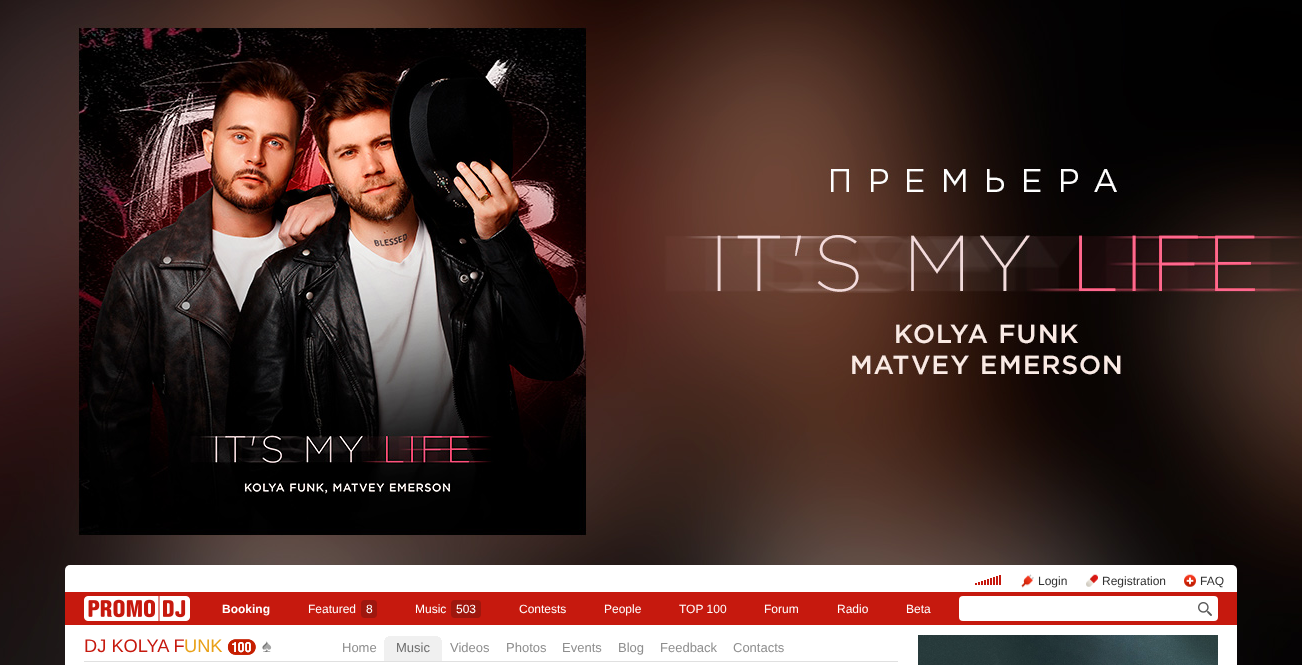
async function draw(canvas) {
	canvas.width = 1302;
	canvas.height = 665;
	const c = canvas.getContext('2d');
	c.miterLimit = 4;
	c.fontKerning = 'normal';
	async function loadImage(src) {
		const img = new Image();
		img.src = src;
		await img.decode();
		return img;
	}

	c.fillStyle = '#fff';
	c.fillRect(0, 0, 1302, 665);
	c.drawImage(await loadImage('img1.png'), 0, 0, 1302, 665);
	c.beginPath();
	c.roundRect(65, 565, 1172, 27, [5, 5, 0, 0]);
	c.fill();
	for (const [x, y, w, h, color] of [
		[975, 583, 2, 2, '#c6190e'],
		[978, 582, 2, 3, '#c6190e'],
		[981, 581, 2, 4, '#c6190e'],
		[984, 580, 2, 5, '#c6190e'],
		[987, 579, 2, 6, '#c6190e'],
		[990, 578, 2, 7, '#c6190e'],
		[993, 577, 2, 8, '#c6190e'],
		[996, 576, 2, 9, '#c6190e'],
		[999, 575, 2, 10, '#c6190e'],
	]) {
		c.fillStyle = color;
		c.fillRect(x, y, w, h);
	}
	c.drawImage(await loadImage('img2.png'), 1021, 574, 13, 14);
	c.font = '12px Liberation Sans';
	c.fillStyle = '#313131';
	c.fillText('Login', 1038, 585);
	c.drawImage(await loadImage('img3.png'), 1086, 574, 12, 13);
	c.fillText('Registration', 1102, 585);
	c.drawImage(await loadImage('img4.png'), 1184, 574, 12, 13);
	c.fillText('FAQ', 1200, 585);
	c.fillStyle = '#c6190e';
	c.fillRect(65, 592, 1172, 33);
	c.drawImage(await loadImage('img5.png'), 84, 596, 106, 25);
	c.font = 'bold 12px Liberation Sans';
	c.fillStyle = '#fff';
	c.fillText('Booking', 222, 613);
	c.font = '12px Liberation Sans';
	c.fillText('Featured', 308, 613);
	c.fillStyle = '#9e170e';
	c.beginPath();
	c.roundRect(361, 600, 16, 18, 4);
	c.fill();
	c.fillStyle = '#fff';
	c.fillText('8', 366, 613);
	c.fillText('Music', 415, 613);
	c.fillStyle = '#9e170e';
	c.beginPath();
	c.roundRect(451, 600, 30, 18, 4);
	c.fill();
	c.fillStyle = '#fff';
	for (const [text, x, y] of [
		['503', 456, 613],
		['Сontests', 519, 613],
		['People', 604, 613],
		['TOP 100', 679, 613],
		['Forum', 764, 613],
		['Radio', 837, 613],
		['Beta', 906, 613],
	]) {
		c.fillText(text, x, y);
	}
	c.beginPath();
	c.roundRect(959, 596, 259, 25, 4);
	c.fill();
	c.drawImage(await loadImage('img6.png'), 1198, 602, 14, 14);
	c.fillRect(65, 625, 1172, 40);
	c.fillStyle = '#e0e0e0';
	c.fillRect(84, 661, 814, 1);
	c.font = '18.25px Liberation Sans';
	c.fillStyle = '#c6190e';
	c.fillText('DJ KOLYA F', 84, 652);
	c.fillStyle = '#e9a118';
	c.fillText('UNK', 184, 652);
	c.drawImage(await loadImage('img7.png'), 227, 639, 29, 16);
	c.drawImage(await loadImage('img8.png'), 262, 641, 10, 11);
	c.font = '13px Liberation Sans';
	c.fillStyle = '#8e8e8e';
	c.fillText('Home', 342, 652);
	c.fillStyle = '#f0f0f0';
	c.fillRect(384, 636, 58, 25);
	c.drawImage(await loadImage('img9.png'), 384, 636, 4, 4);
	c.drawImage(await loadImage('img10.png'), 438, 636, 4, 4);
	c.fillStyle = '#6e6e6e';
	c.fillText('Music', 396, 652);
	c.fillStyle = '#8e8e8e';
	for (const [text, x, y] of [
		['Videos', 450, 652],
		['Photos', 506, 652],
		['Events', 562, 652],
		['Blog', 618, 652],
		['Feedback', 660, 652],
		['Contacts', 733, 652],
	]) {
		c.fillText(text, x, y);
	}
	c.drawImage(await loadImage('img11.png'), 918, 635, 300, 30);
}

draw(document.querySelector('canvas'));
